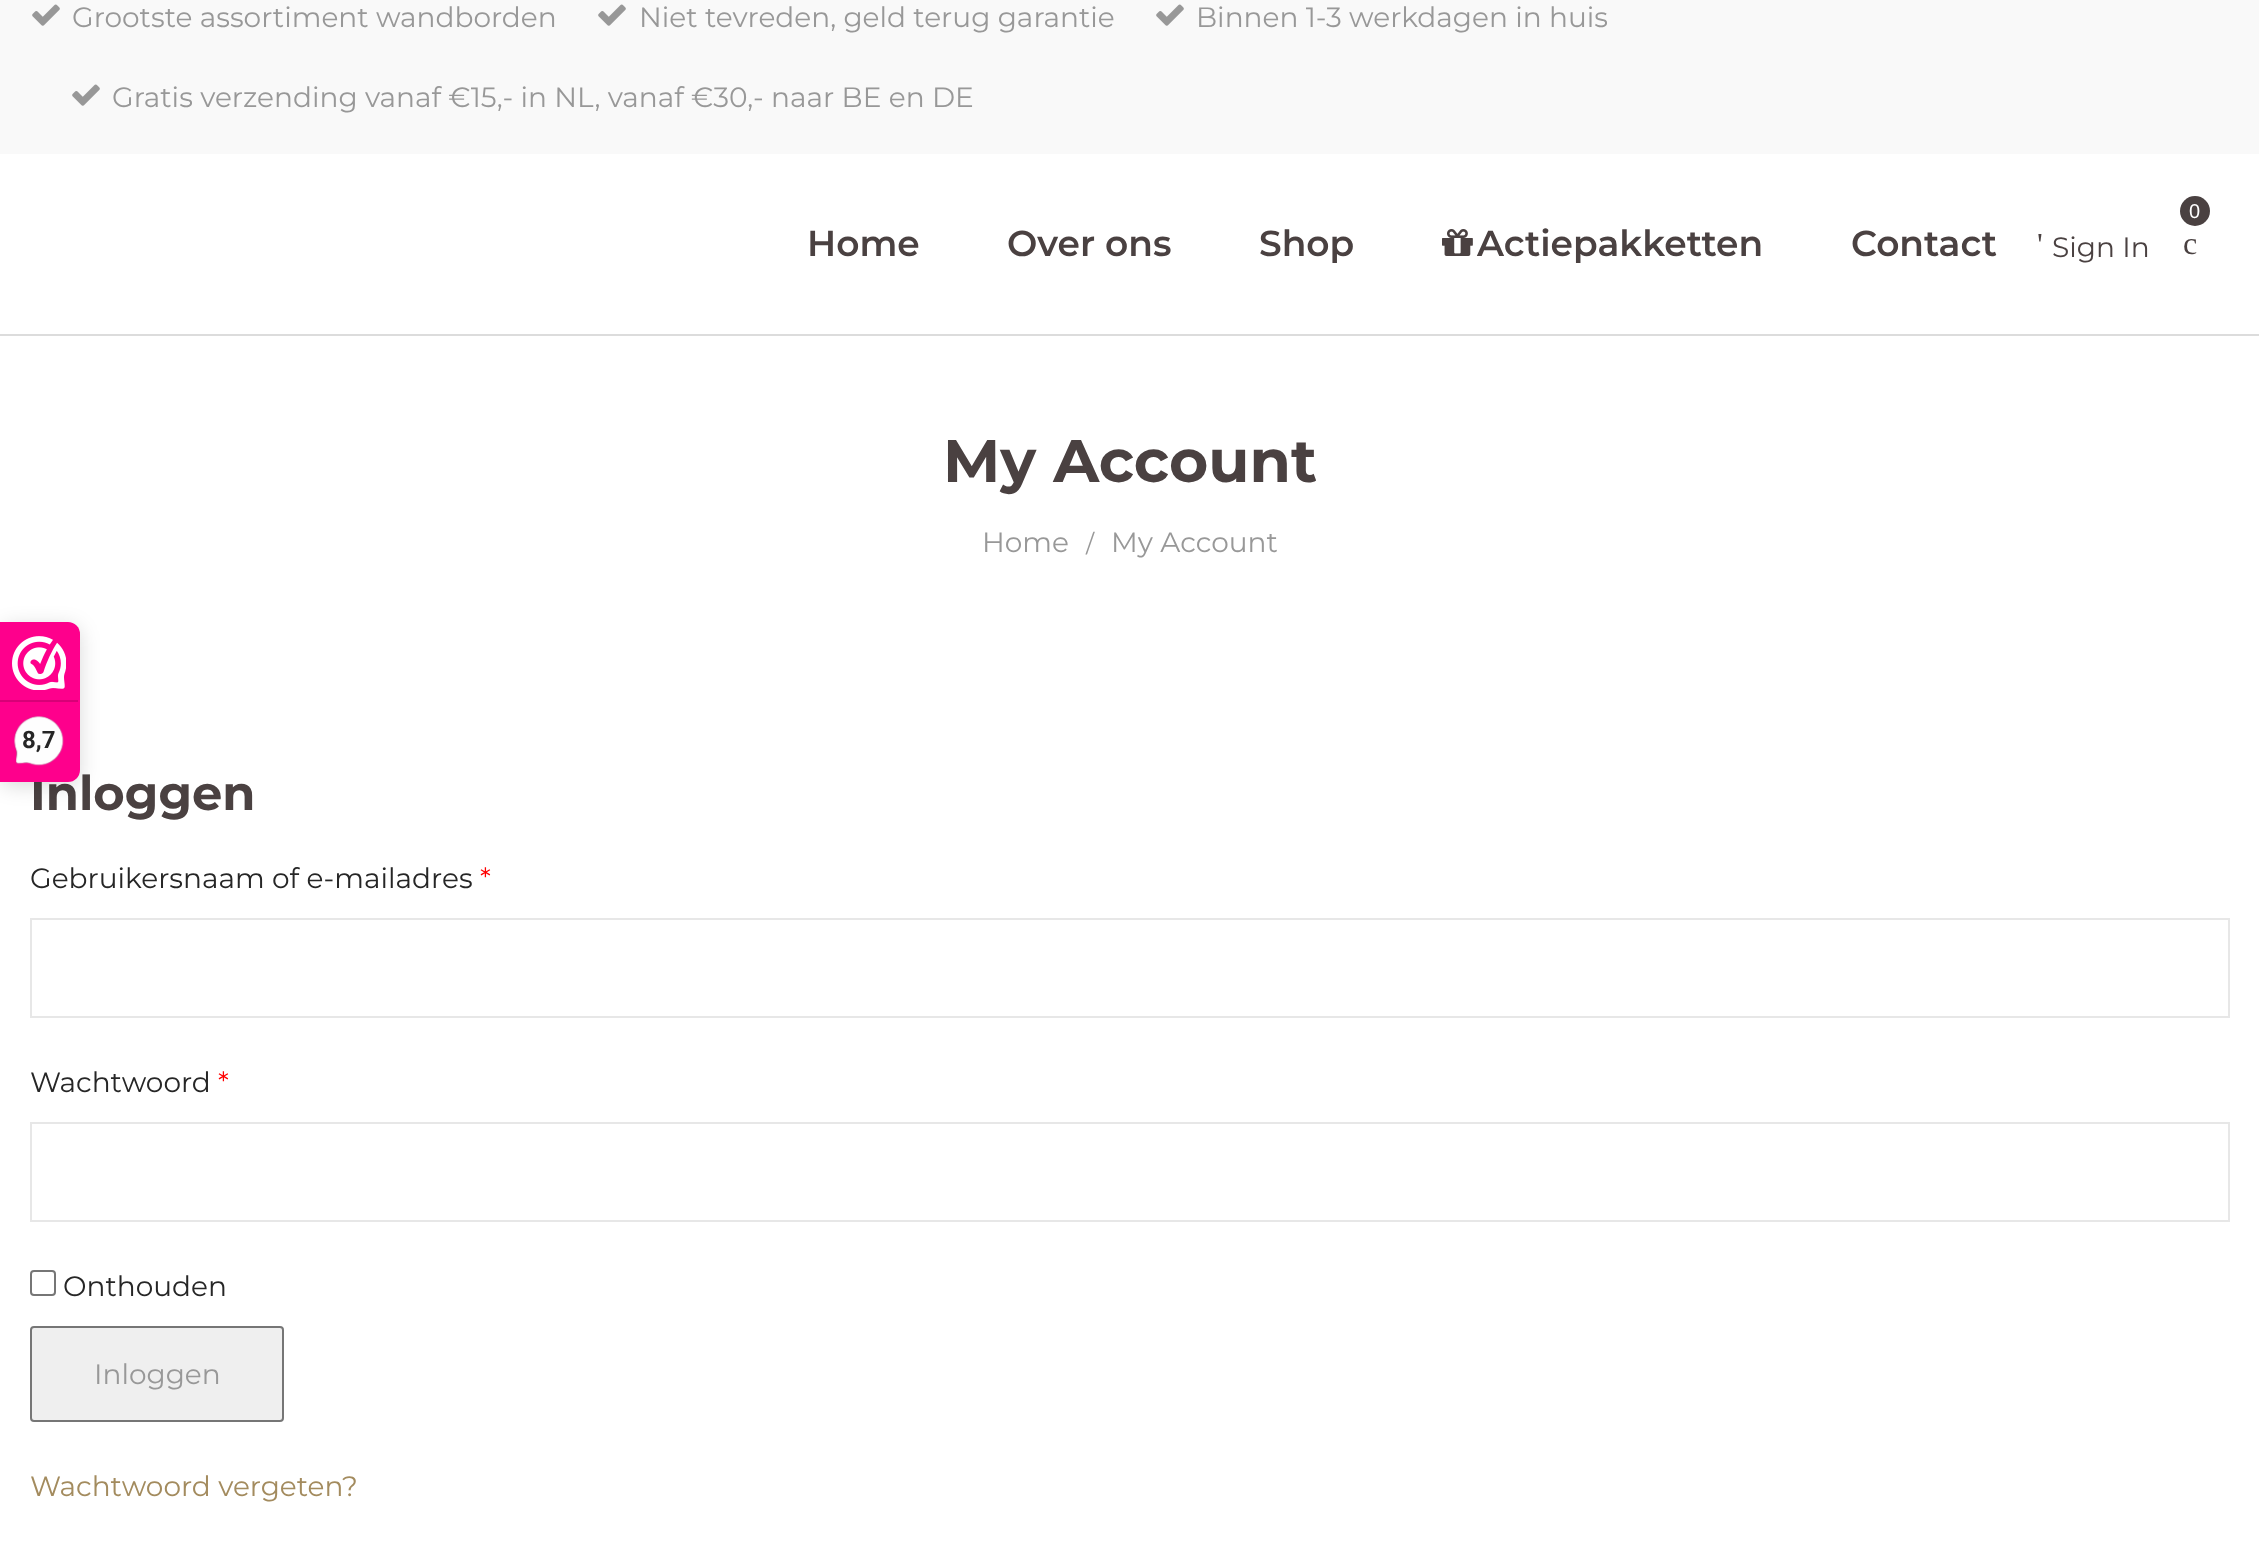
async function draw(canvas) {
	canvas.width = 2259;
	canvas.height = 1563;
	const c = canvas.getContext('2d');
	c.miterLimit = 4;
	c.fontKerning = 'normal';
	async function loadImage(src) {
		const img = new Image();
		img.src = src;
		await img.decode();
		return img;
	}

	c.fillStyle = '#fff';
	c.fillRect(0, 0, 2259, 1563);
	c.fillStyle = '#f9f9f9';
	c.fillRect(0, 0, 2259, 154);
	c.drawImage(await loadImage('img1.png'), 32, 4, 28, 22);
	c.font = '28px Montserrat';
	c.fillStyle = '#989898';
	c.fillText('Grootste assortiment wandborden', 72, 27);
	c.drawImage(await loadImage('img1.png'), 598, 4, 28, 22);
	c.fillText('Niet tevreden, geld terug garantie', 639, 27);
	c.drawImage(await loadImage('img1.png'), 1156, 4, 28, 22);
	c.fillText('Binnen 1-3 werkdagen in huis', 1196, 27);
	c.drawImage(await loadImage('img1.png'), 72, 84, 28, 22);
	c.fillText('Gratis verzending vanaf €15,- in NL, vanaf €30,- naar BE en DE', 112, 107);
	c.font = '600 36px Montserrat';
	c.fillStyle = '#4a4141';
	for (const [text, x, y] of [
		['Home', 807, 256],
		['Over ons', 1007, 256],
		['Shop', 1259, 256],
	]) {
		c.fillText(text, x, y);
	}
	c.drawImage(await loadImage('img2.png'), 1442, 229, 31, 27);
	c.fillText('Actiepakketten', 1477, 256);
	c.fillText('Contact', 1851, 256);
	c.font = '32px Liberation Serif';
	c.fillText('\'', 2037, 255);
	c.font = '28px Montserrat';
	c.fillText('Sign In', 2052, 257);
	c.beginPath();
	c.arc(2195, 211, 15, 0, 2 * Math.PI);
	c.fill();
	c.font = '20px Liberation Sans';
	c.fillStyle = '#fff';
	c.fillText('0', 2189, 218);
	c.font = '32px Liberation Serif';
	c.fillStyle = '#4a4141';
	c.fillText('c', 2183, 254);
	c.fillStyle = '#dcdcdc';
	c.fillRect(0, 334, 2259, 2);
	c.font = 'bold 60px Montserrat';
	c.fillStyle = '#4a4141';
	c.fillText('My Account', 943, 482);
	c.font = '28px Montserrat';
	c.fillStyle = '#989898';
	c.fillText('Home', 982, 552);
	c.font = '24px Montserrat';
	c.fillText('/', 1086, 552);
	c.font = '28px Montserrat';
	c.fillText('My Account', 1111, 552);
	c.font = 'bold 48px Montserrat';
	c.fillStyle = '#4a4141';
	c.fillText('Inloggen', 30, 810);
	c.font = '28px Montserrat';
	c.fillStyle = '#262626';
	c.fillText('Gebruikersnaam of e-mailadres', 30, 888);
	c.fillStyle = '#f00';
	c.fillText('*', 480, 888);
	c.strokeStyle = '#e7e7e7';
	c.lineWidth = 2;
	c.strokeRect(31, 919, 2198, 98);
	c.fillStyle = '#262626';
	c.fillText('Wachtwoord', 30, 1092);
	c.fillStyle = '#f00';
	c.fillText('*', 218, 1092);
	c.strokeRect(31, 1123, 2198, 98);
	c.beginPath();
	c.roundRect(31, 1271, 24, 24, 3);
	c.strokeStyle = '#767676';
	c.stroke();
	c.fillStyle = '#262626';
	c.fillText('Onthouden', 63, 1296);
	c.fillStyle = '#efefef';
	c.beginPath();
	c.roundRect(31, 1327, 252, 94, 3);
	c.fill();
	c.stroke();
	c.fillStyle = '#989898';
	c.fillText('Inloggen', 94, 1384);
	c.fillStyle = '#a38b5e';
	c.fillText('Wachtwoord vergeten?', 30, 1496);
	c.fillStyle = '#00000026';
	c.filter = 'blur(10px)';
	c.beginPath();
	c.roundRect(0, 626, 80, 160, 12);
	c.fill();
	c.filter = 'none';
	c.fillStyle = '#fe008c';
	c.beginPath();
	c.roundRect(0, 622, 80, 160, [0, 12, 12, 0]);
	c.fill();
	c.drawImage(await loadImage('img3.png'), 12, 636, 54, 54);
	c.fillStyle = '#d80077';
	c.fillRect(0, 700, 78, 2);
	c.drawImage(await loadImage('img4.png'), 14, 716, 50, 50);
	c.font = 'bold 24px Roboto';
	c.fillStyle = '#262626';
	c.fillText('8,7', 22, 748);
}

draw(document.querySelector('canvas'));
